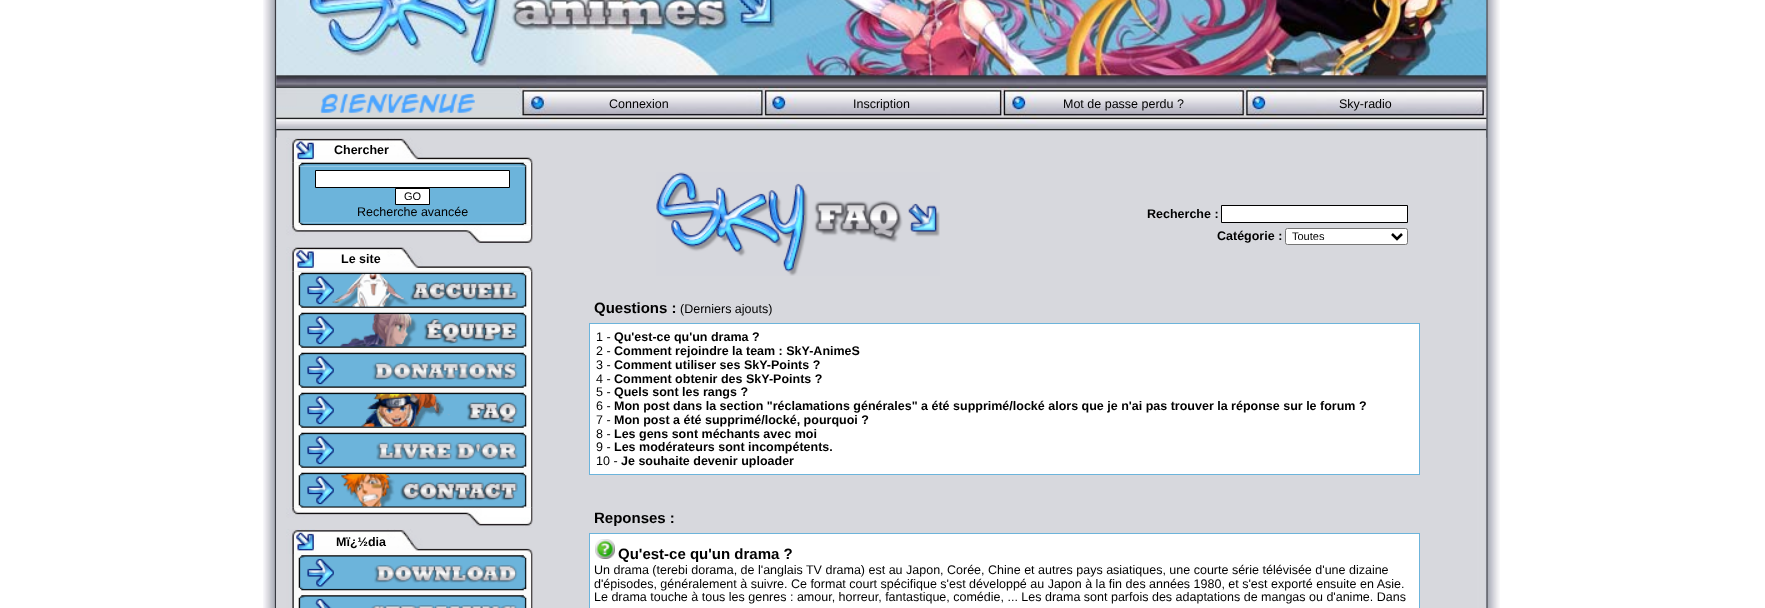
async function draw(canvas) {
	canvas.width = 1765;
	canvas.height = 608;
	const c = canvas.getContext('2d');
	c.miterLimit = 4;
	c.fontKerning = 'normal';
	async function loadImage(src) {
		const img = new Image();
		img.src = src;
		await img.decode();
		return img;
	}

	c.fillStyle = '#fff';
	c.fillRect(0, 0, 1765, 608);
	c.drawImage(await loadImage('img1.png'), 263, 0, 1237, 608);
	c.drawImage(await loadImage('img2.png'), 276, 0, 1211, 87);
	c.drawImage(await loadImage('img3.png'), 276, 86, 1211, 45);
	c.drawImage(await loadImage('img4.png'), 320, 93, 155, 20);
	c.font = '12.5px Liberation Sans';
	c.fillStyle = '#000';
	for (const [text, x, y] of [
		['Connexion', 609, 108],
		['Inscription', 853, 108],
		['Mot de passe perdu ?', 1063, 108],
		['Sky-radio', 1339, 108],
	]) {
		c.fillText(text, x, y);
	}
	c.drawImage(await loadImage('img5.png'), 276, 137, 1, 471);
	c.drawImage(await loadImage('img6.png'), 276, 137, 257, 26);
	c.font = 'bold 12.5px Liberation Sans';
	c.fillText('Chercher', 334, 154);
	c.drawImage(await loadImage('img7.png'), 276, 162, 257, 64);
	c.drawImage(await loadImage('img8.png'), 298, 162, 229, 5);
	c.drawImage(await loadImage('img9.png'), 298, 166, 229, 57);
	c.fillStyle = '#fff';
	c.beginPath();
	c.rect(315.5, 170.5, 194, 17);
	c.fill();
	c.strokeStyle = '#000';
	c.stroke();
	c.beginPath();
	c.rect(395.5, 188.5, 34, 16);
	c.fill();
	c.stroke();
	c.font = '11px Liberation Sans';
	c.fillStyle = '#000';
	c.fillText('GO', 404, 200);
	c.font = '12.5px Liberation Sans';
	c.fillText('Recherche avancée', 357, 216);
	c.drawImage(await loadImage('img10.png'), 299, 222, 228, 4);
	c.drawImage(await loadImage('img11.png'), 276, 225, 257, 22);
	c.drawImage(await loadImage('img12.png'), 276, 247, 257, 25);
	c.font = 'bold 12.5px Liberation Sans';
	c.fillText('Le site', 341, 263);
	c.drawImage(await loadImage('img13.png'), 276, 271, 257, 237);
	c.drawImage(await loadImage('img14.png'), 298, 272, 229, 36);
	c.drawImage(await loadImage('img15.png'), 332, 273, 186, 34);
	c.drawImage(await loadImage('img16.png'), 410, 282, 108, 18);
	c.drawImage(await loadImage('img14.png'), 298, 312, 229, 36);
	c.drawImage(await loadImage('img17.png'), 340, 313, 178, 34);
	c.drawImage(await loadImage('img18.png'), 424, 318, 94, 26);
	c.drawImage(await loadImage('img14.png'), 298, 352, 229, 36);
	c.drawImage(await loadImage('img19.png'), 372, 362, 146, 18);
	c.drawImage(await loadImage('img14.png'), 298, 392, 229, 36);
	c.drawImage(await loadImage('img20.png'), 361, 393, 157, 34);
	c.drawImage(await loadImage('img21.png'), 467, 402, 51, 22);
	c.drawImage(await loadImage('img22.png'), 298, 432, 229, 36);
	c.drawImage(await loadImage('img23.png'), 376, 442, 142, 18);
	c.drawImage(await loadImage('img24.png'), 298, 472, 229, 36);
	c.drawImage(await loadImage('img25.png'), 341, 473, 177, 34);
	c.drawImage(await loadImage('img26.png'), 400, 482, 118, 18);
	c.drawImage(await loadImage('img27.png'), 276, 507, 257, 22);
	c.drawImage(await loadImage('img28.png'), 276, 529, 257, 25);
	c.fillText('Mï¿½dia', 336, 546);
	c.drawImage(await loadImage('img29.png'), 276, 554, 257, 54);
	c.drawImage(await loadImage('img30.png'), 298, 555, 229, 36);
	c.drawImage(await loadImage('img31.png'), 374, 565, 144, 18);
	c.drawImage(await loadImage('img32.png'), 298, 595, 229, 13);
	c.drawImage(await loadImage('img33.png'), 371, 605, 146, 3);
	c.fillStyle = '#d7d7dd80';
	c.fillRect(532, 160, 1, 448);
	c.drawImage(await loadImage('img34.png'), 656, 172, 284, 104);
	c.fillStyle = '#000';
	c.fillText('Recherche :', 1147, 218);
	c.fillStyle = '#fff';
	c.beginPath();
	c.rect(1221.5, 205.5, 186, 17);
	c.fill();
	c.stroke();
	c.fillStyle = '#000';
	c.fillText('Catégorie :', 1217, 240);
	c.fillStyle = '#fff';
	c.beginPath();
	c.roundRect(1285.5, 228.5, 122, 16, 2);
	c.fill();
	c.strokeStyle = '#767676';
	c.stroke();
	c.beginPath();
	c.moveTo(1392, 234);
	c.lineTo(1397, 239);
	c.lineTo(1402, 234);
	c.strokeStyle = '#000';
	c.lineWidth = 2.5;
	c.stroke();
	c.font = '11px Liberation Sans';
	c.fillStyle = '#000';
	c.fillText('Toutes', 1292, 240);
	c.font = 'bold 15px Liberation Sans';
	c.fillText('Questions :', 594, 313);
	c.font = '12.5px Liberation Sans';
	c.fillText('(Derniers ajouts)', 680, 313);
	c.fillStyle = '#6cb4db';
	c.fillRect(589, 323, 831, 152);
	c.fillStyle = '#fff';
	c.fillRect(590, 324, 829, 150);
	c.fillStyle = '#000';
	c.fillText('1 -', 596, 341);
	c.font = 'bold 12.5px Liberation Sans';
	c.fillText('Qu\'est-ce qu\'un drama ?', 614, 341);
	c.font = '12.5px Liberation Sans';
	c.fillText('2 -', 596, 355);
	c.font = 'bold 12.5px Liberation Sans';
	c.fillText('Comment rejoindre la team : SkY-AnimeS', 614, 355);
	c.font = '12.5px Liberation Sans';
	c.fillText('3 -', 596, 369);
	c.font = 'bold 12.5px Liberation Sans';
	c.fillText('Comment utiliser ses SkY-Points ?', 614, 369);
	c.font = '12.5px Liberation Sans';
	c.fillText('4 -', 596, 383);
	c.font = 'bold 12.5px Liberation Sans';
	c.fillText('Comment obtenir des SkY-Points ?', 614, 383);
	c.font = '12.5px Liberation Sans';
	c.fillText('5 -', 596, 396);
	c.font = 'bold 12.5px Liberation Sans';
	c.fillText('Quels sont les rangs ?', 614, 396);
	c.font = '12.5px Liberation Sans';
	c.fillText('6 -', 596, 410);
	c.font = 'bold 12.5px Liberation Sans';
	c.fillText('Mon post dans la section "réclamations générales" a été supprimé/locké alors que je n\'ai pas trouver la réponse sur le forum ?', 614, 410);
	c.font = '12.5px Liberation Sans';
	c.fillText('7 -', 596, 424);
	c.font = 'bold 12.5px Liberation Sans';
	c.fillText('Mon post a été supprimé/locké, pourquoi ?', 614, 424);
	c.font = '12.5px Liberation Sans';
	c.fillText('8 -', 596, 438);
	c.font = 'bold 12.5px Liberation Sans';
	c.fillText('Les gens sont méchants avec moi', 614, 438);
	c.font = '12.5px Liberation Sans';
	c.fillText('9 -', 596, 451);
	c.font = 'bold 12.5px Liberation Sans';
	c.fillText('Les modérateurs sont incompétents.', 614, 451);
	c.font = '12.5px Liberation Sans';
	c.fillText('10 -', 596, 465);
	c.font = 'bold 12.5px Liberation Sans';
	c.fillText('Je souhaite devenir uploader', 621, 465);
	c.font = 'bold 15px Liberation Sans';
	c.fillText('Reponses :', 594, 523);
	c.fillStyle = '#6cb4db';
	c.fillRect(589, 533, 831, 75);
	c.fillStyle = '#fff';
	c.fillRect(590, 534, 829, 74);
	c.drawImage(await loadImage('img35.png'), 595, 539, 20, 20);
	c.fillStyle = '#000';
	c.fillText('Qu\'est-ce qu\'un drama ?', 618, 559);
	c.font = '12.5px Liberation Sans';
	for (const [text, x, y] of [
		['Un drama (terebi dorama, de l\'anglais TV drama) est au Japon, Corée, Chine et autres pays asiatiques, une courte série télévisée d\'une dizaine', 594, 574],
		['d\'épisodes, généralement à suivre. Ce format court spécifique s\'est développé au Japon à la fin des années 1980, et s\'est exporté ensuite en Asie.', 594, 588],
		['Le drama touche à tous les genres : amour, horreur, fantastique, comédie, ... Les drama sont parfois des adaptations de mangas ou d\'anime. Dans', 594, 601],
	]) {
		c.fillText(text, x, y);
	}
	c.drawImage(await loadImage('img36.png'), 1486, 137, 1, 471);
}

draw(document.querySelector('canvas'));
